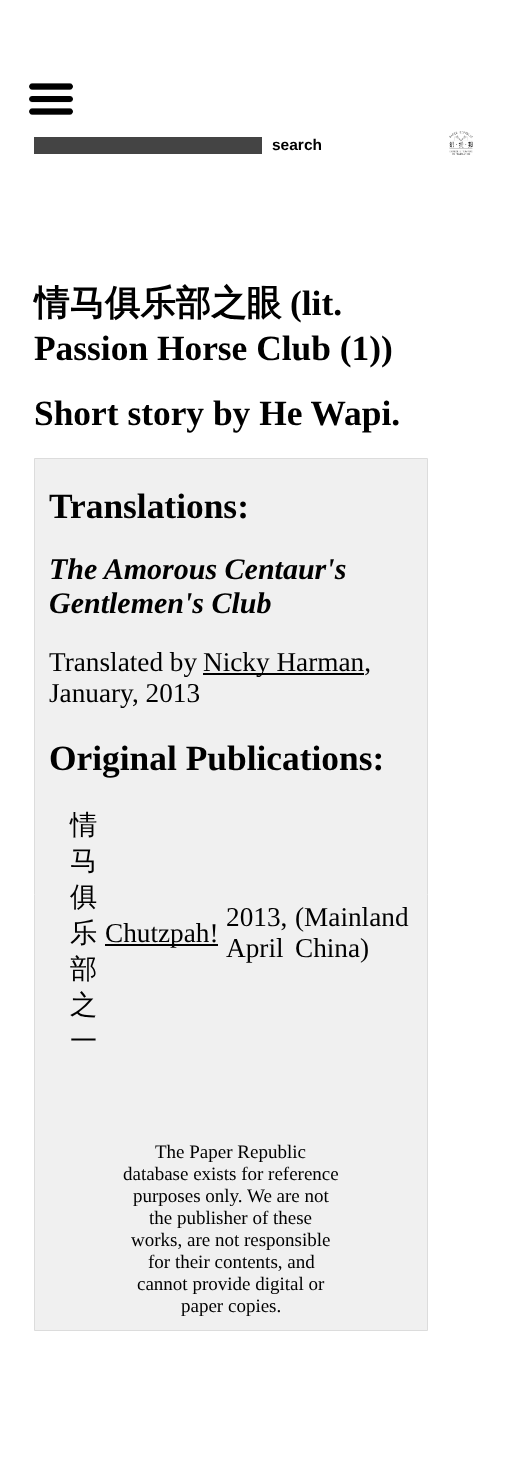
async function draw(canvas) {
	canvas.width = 520;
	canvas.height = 1480;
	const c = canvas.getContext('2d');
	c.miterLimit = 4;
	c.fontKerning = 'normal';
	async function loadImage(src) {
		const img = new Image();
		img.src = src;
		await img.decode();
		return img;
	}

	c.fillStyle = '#fff';
	c.fillRect(0, 0, 520, 1480);
	c.drawImage(await loadImage('img1.png'), 29, 83, 44, 32);
	c.fillStyle = '#444';
	c.fillRect(34, 137, 228, 17);
	c.font = 'bold 15.5px Liberation Sans';
	c.fillStyle = '#000';
	c.fillText('search', 272, 150);
	c.drawImage(await loadImage('img2.png'), 449, 131, 24, 24);
	c.font = 'bold 35.4px WenQuanYi Zen Hei';
	c.fillText('情马俱乐部之眼', 34, 315);
	c.font = 'bold 35.4px Liberation Serif';
	for (const [text, x, y] of [
		['(lit.', 290, 315],
		['Passion Horse Club (1))', 34, 360],
		['Short story by He Wapi.', 34, 425],
	]) {
		c.fillText(text, x, y);
	}
	c.fillStyle = '#f0f0f0';
	c.beginPath();
	c.rect(34.5, 458.5, 393, 872);
	c.fill();
	c.strokeStyle = '#dcdcdc';
	c.stroke();
	c.fillStyle = '#000';
	c.fillText('Translations:', 49, 518);
	c.font = 'italic bold 30px Liberation Serif';
	c.fillText('The Amorous Centaur\'s', 49, 579);
	c.fillText('Gentlemen\'s Club', 49, 613);
	c.font = '27.25px Liberation Serif';
	c.fillText('Translated by', 49, 671);
	c.fillRect(203, 673, 161, 2);
	c.fillText('Nicky Harman,', 203, 671);
	c.fillText('January, 2013', 49, 702);
	c.font = 'bold 35.4px Liberation Serif';
	c.fillText('Original Publications:', 49, 770);
	c.font = '500 27.25px WenQuanYi Zen Hei';
	for (const [text, x, y] of [
		['情', 70, 834],
		['马', 70, 870],
		['俱', 70, 906],
		['乐', 70, 942],
		['部', 70, 978],
		['之', 70, 1014],
		['一', 70, 1050],
	]) {
		c.fillText(text, x, y);
	}
	c.fillRect(105, 944, 113, 2);
	c.font = '27.25px Liberation Serif';
	for (const [text, x, y] of [
		['Chutzpah!', 105, 942],
		['2013,', 226, 926],
		['April', 226, 957],
		['(Mainland', 295, 926],
		['China)', 295, 957],
	]) {
		c.fillText(text, x, y);
	}
	c.font = '19px Liberation Serif';
	for (const [text, x, y] of [
		['The Paper Republic', 155, 1158],
		['database exists for reference', 123, 1180],
		['purposes only. We are not', 133, 1202],
		['the publisher of these', 149, 1224],
		['works, are not responsible', 131, 1246],
		['for their contents, and', 148, 1268],
		['cannot provide digital or', 137, 1290],
		['paper copies.', 181, 1312],
	]) {
		c.fillText(text, x, y);
	}
}

draw(document.querySelector('canvas'));
